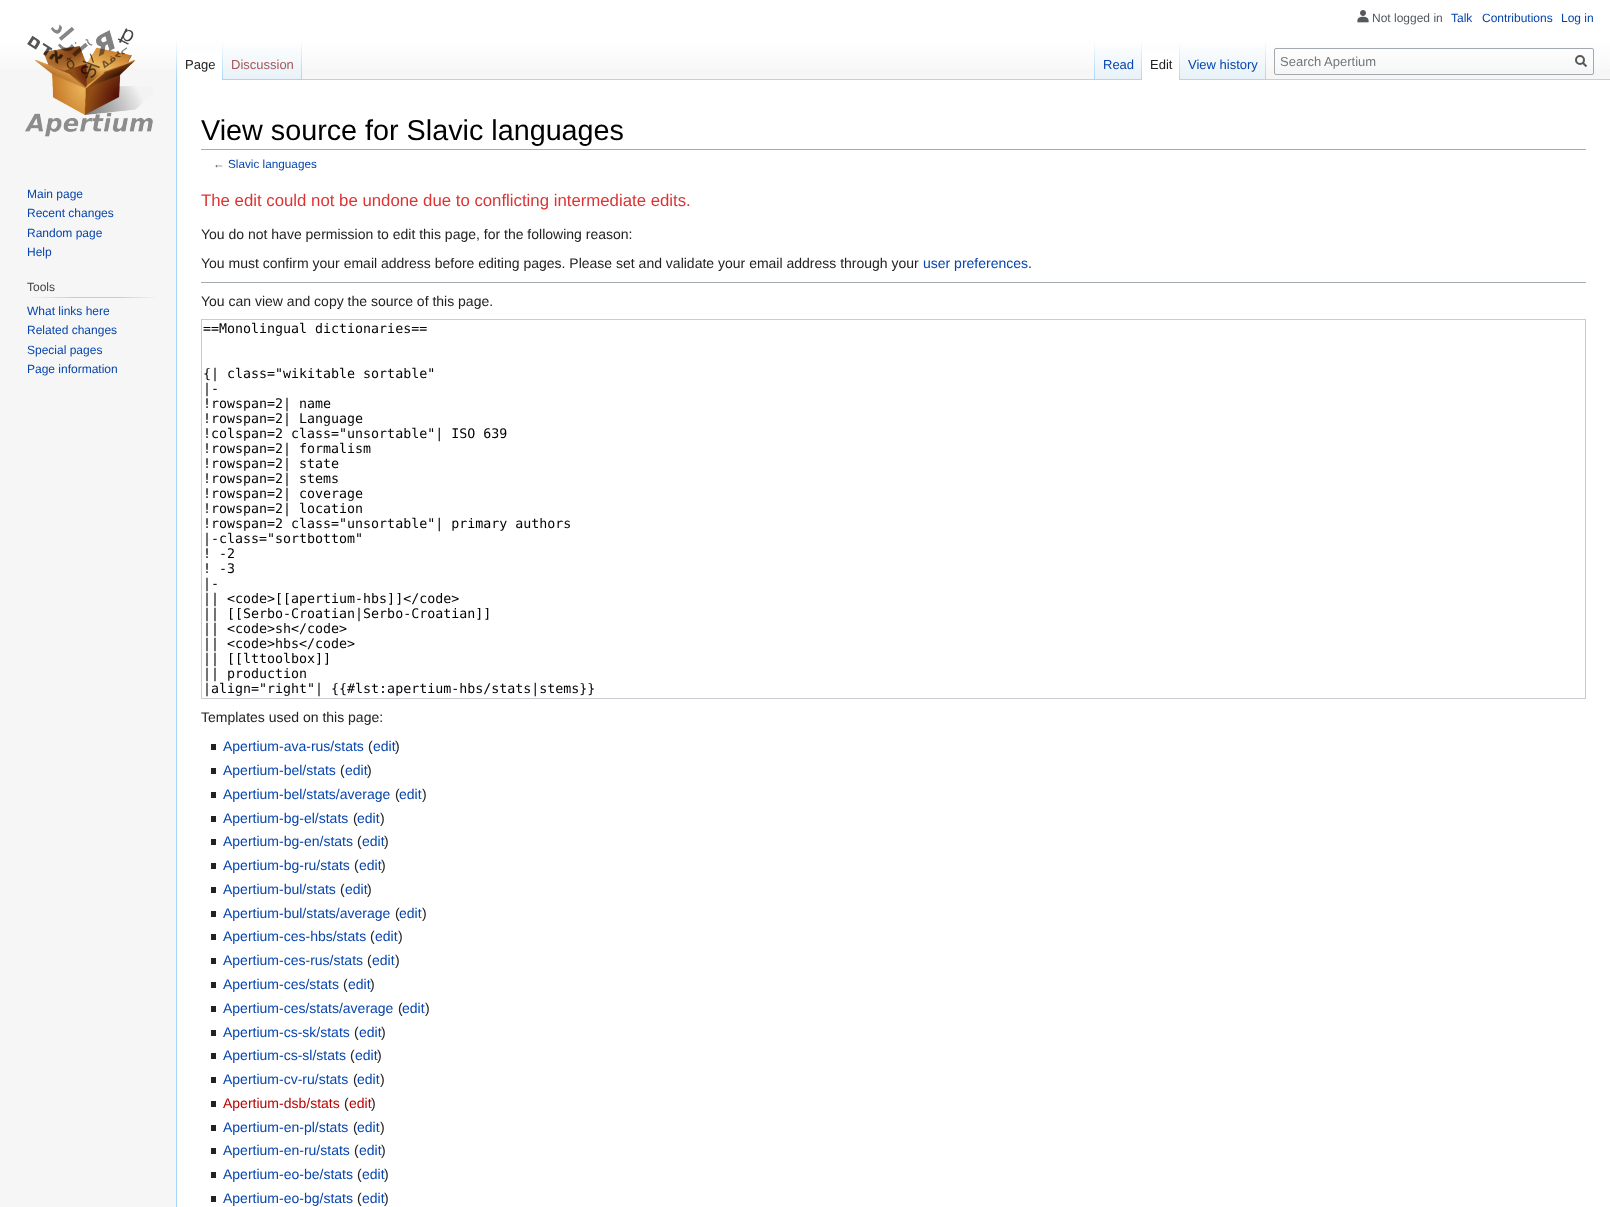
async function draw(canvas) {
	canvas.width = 1610;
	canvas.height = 1207;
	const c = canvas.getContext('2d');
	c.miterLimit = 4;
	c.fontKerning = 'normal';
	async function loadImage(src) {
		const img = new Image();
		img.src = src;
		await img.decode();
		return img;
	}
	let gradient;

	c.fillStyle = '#f6f6f6';
	c.fillRect(0, 0, 1610, 1207);
	gradient = c.createLinearGradient(805, 0, 805, 80);
	gradient.addColorStop(0.5, '#fff');
	gradient.addColorStop(1, '#f6f6f6');
	c.fillStyle = gradient;
	c.fillRect(0, 0, 1610, 69);
	c.drawImage(await loadImage('img1.png'), 1357, 10, 12, 13);
	c.font = '12px Liberation Sans';
	c.fillStyle = '#54595d';
	c.fillText('Not logged in', 1372, 22);
	c.fillStyle = '#0645ad';
	for (const [text, x, y] of [
		['Talk', 1451, 22],
		['Contributions', 1482, 22],
		['Log in', 1561, 22],
	]) {
		c.fillText(text, x, y);
	}
	c.fillStyle = '#a7d7f9';
	c.fillRect(176, 79, 1, 1128);
	gradient = c.createLinearGradient(177, 40, 177, 80);
	gradient.addColorStop(0, '#a7d7f900');
	gradient.addColorStop(1, '#a7d7f9');
	c.fillStyle = gradient;
	c.fillRect(176, 40, 1, 40);
	c.fillStyle = '#fff';
	c.fillRect(177, 51, 45, 29);
	gradient = c.createLinearGradient(223, 40, 223, 80);
	gradient.addColorStop(0, '#fff');
	gradient.addColorStop(1, '#a7d7f9');
	c.fillStyle = gradient;
	c.fillRect(222, 40, 1, 40);
	c.font = '13px Liberation Sans';
	c.fillStyle = '#222';
	c.fillText('Page', 185, 69);
	gradient = c.createLinearGradient(263, 80, 263, 40);
	gradient.addColorStop(0, '#77c1f6');
	gradient.addColorStop(0.03, '#e8f2f8');
	gradient.addColorStop(1, '#fff');
	c.fillStyle = gradient;
	c.fillRect(223, 46, 79, 34);
	gradient = c.createLinearGradient(302, 40, 302, 80);
	gradient.addColorStop(0, '#a7d7f900');
	gradient.addColorStop(1, '#a7d7f9');
	c.fillStyle = gradient;
	c.fillRect(301, 40, 1, 40);
	c.fillStyle = '#a55858';
	c.fillText('Discussion', 231, 69);
	c.fillStyle = '#a7d7f9';
	c.fillRect(302, 79, 1308, 1);
	gradient = c.createLinearGradient(1095, 40, 1095, 80);
	gradient.addColorStop(0, '#a7d7f900');
	gradient.addColorStop(1, '#a7d7f9');
	c.fillStyle = gradient;
	c.fillRect(1094, 40, 1, 40);
	gradient = c.createLinearGradient(1119, 80, 1119, 40);
	gradient.addColorStop(0, '#77c1f6');
	gradient.addColorStop(0.03, '#e8f2f8');
	gradient.addColorStop(1, '#fff');
	c.fillStyle = gradient;
	c.fillRect(1095, 46, 47, 33);
	gradient = c.createLinearGradient(1142, 40, 1142, 80);
	gradient.addColorStop(0, '#a7d7f900');
	gradient.addColorStop(1, '#a7d7f9');
	c.fillStyle = gradient;
	c.fillRect(1141, 40, 1, 40);
	c.fillStyle = '#0645ad';
	c.fillText('Read', 1103, 69);
	c.fillStyle = '#fff';
	c.fillRect(1142, 51, 37, 29);
	gradient = c.createLinearGradient(1180, 40, 1180, 80);
	gradient.addColorStop(0, '#fff');
	gradient.addColorStop(1, '#a7d7f9');
	c.fillStyle = gradient;
	c.fillRect(1179, 40, 1, 40);
	c.fillStyle = '#222';
	c.fillText('Edit', 1150, 69);
	gradient = c.createLinearGradient(1223, 80, 1223, 40);
	gradient.addColorStop(0, '#77c1f6');
	gradient.addColorStop(0.03, '#e8f2f8');
	gradient.addColorStop(1, '#fff');
	c.fillStyle = gradient;
	c.fillRect(1180, 46, 86, 33);
	gradient = c.createLinearGradient(1266, 40, 1266, 80);
	gradient.addColorStop(0, '#a7d7f900');
	gradient.addColorStop(1, '#a7d7f9');
	c.fillStyle = gradient;
	c.fillRect(1265, 40, 1, 40);
	c.fillStyle = '#0645ad';
	c.fillText('View history', 1188, 69);
	c.beginPath();
	c.roundRect(1274.5, 48.5, 319, 26, 1.5);
	c.strokeStyle = '#a2a9b1';
	c.stroke();
	c.fillStyle = '#72777d';
	c.fillText('Search Apertium', 1280, 66);
	c.beginPath();
	c.moveTo(1586.5, 66.5);
	c.lineTo(1582.5, 62.5);
	c.strokeStyle = '#54595d';
	c.lineWidth = 2;
	c.stroke();
	c.beginPath();
	c.arc(1580, 60, 4, 0, 2 * Math.PI);
	c.stroke();
	c.drawImage(await loadImage('img2.png'), 25, 24, 128, 113);
	c.font = '12px Liberation Sans';
	c.fillStyle = '#0645ad';
	for (const [text, x, y] of [
		['Main page', 27, 198],
		['Recent changes', 27, 217],
		['Random page', 27, 237],
		['Help', 27, 256],
	]) {
		c.fillText(text, x, y);
	}
	c.fillStyle = '#444';
	c.fillText('Tools', 27, 291);
	gradient = c.createLinearGradient(27, 298, 158, 298);
	gradient.addColorStop(0, '#f6f6f6');
	gradient.addColorStop(0.35, '#c8ccd1');
	gradient.addColorStop(0.7, '#c8ccd1');
	gradient.addColorStop(1, '#f6f6f6');
	c.fillStyle = gradient;
	c.fillRect(27, 297, 131, 1);
	c.fillStyle = '#0645ad';
	for (const [text, x, y] of [
		['What links here', 27, 315],
		['Related changes', 27, 334],
		['Special pages', 27, 354],
		['Page information', 27, 373],
	]) {
		c.fillText(text, x, y);
	}
	c.fillStyle = '#fff';
	c.fillRect(177, 80, 1433, 1127);
	c.fillStyle = '#a2a9b1';
	c.fillRect(201, 149, 1385, 1);
	c.font = '28.75px Liberation Sans';
	c.fillStyle = '#000';
	c.fillText('View source for Slavic languages', 201, 140);
	c.font = '11.75px Liberation Sans';
	c.fillStyle = '#54595d';
	c.fillText('←', 213, 168);
	c.fillStyle = '#0645ad';
	c.fillText('Slavic languages', 228, 168);
	c.font = '16.8px Liberation Sans';
	c.fillStyle = '#d33';
	c.fillText('The edit could not be undone due to conflicting intermediate edits.', 201, 206);
	c.font = '14px Liberation Sans';
	c.fillStyle = '#222';
	c.fillText('You do not have permission to edit this page, for the following reason:', 201, 239);
	c.fillText('You must confirm your email address before editing pages. Please set and validate your email address through your', 201, 268);
	c.fillStyle = '#0645ad';
	c.fillText('user preferences', 923, 268);
	c.fillStyle = '#222';
	c.fillText('.', 1028, 268);
	c.fillStyle = '#a2a9b1';
	c.fillRect(201, 282, 1385, 1);
	c.fillStyle = '#222';
	c.fillText('You can view and copy the source of this page.', 201, 306);
	c.strokeStyle = '#c8ccd1';
	c.lineWidth = 1;
	c.strokeRect(201.5, 319.5, 1384, 379);
	c.font = '13.3px DejaVu Sans Mono';
	c.fillStyle = '#000';
	for (const [text, x, y] of [
		['==Monolingual dictionaries==', 203, 333],
		['{| class="wikitable sortable"', 203, 378],
		['|-', 203, 393],
		['!rowspan=2| name', 203, 408],
		['!rowspan=2| Language', 203, 423],
		['!colspan=2 class="unsortable"| ISO 639', 203, 438],
		['!rowspan=2| formalism', 203, 453],
		['!rowspan=2| state', 203, 468],
		['!rowspan=2| stems', 203, 483],
		['!rowspan=2| coverage', 203, 498],
		['!rowspan=2| location', 203, 513],
		['!rowspan=2 class="unsortable"| primary authors', 203, 528],
		['|-class="sortbottom"', 203, 543],
		['! -2', 203, 558],
		['! -3', 203, 573],
		['|-', 203, 588],
		['|| <code>[[apertium-hbs]]<\/code>', 203, 603],
		['|| [[Serbo-Croatian|Serbo‑Croatian]]', 203, 618],
		['|| <code>sh<\/code>', 203, 633],
		['|| <code>hbs<\/code>', 203, 648],
		['|| [[lttoolbox]]', 203, 663],
		['|| production', 203, 678],
		['|align="right"| {{#lst:apertium-hbs/stats|stems}}', 203, 693],
	]) {
		c.fillText(text, x, y);
	}
	c.font = '14px Liberation Sans';
	c.fillStyle = '#222';
	c.fillText('Templates used on this page:', 201, 722);
	c.fillRect(211, 744, 5, 6);
	c.fillStyle = '#0645ad';
	c.fillText('Apertium-ava-rus/stats', 223, 751);
	c.fillStyle = '#222';
	c.fillText('(', 368, 751);
	c.fillStyle = '#0645ad';
	c.fillText('edit', 373, 751);
	c.fillStyle = '#222';
	c.fillText(')', 395, 751);
	c.fillRect(211, 768, 5, 6);
	c.fillStyle = '#0645ad';
	c.fillText('Apertium-bel/stats', 223, 775);
	c.fillStyle = '#222';
	c.fillText('(', 340, 775);
	c.fillStyle = '#0645ad';
	c.fillText('edit', 345, 775);
	c.fillStyle = '#222';
	c.fillText(')', 367, 775);
	c.fillRect(211, 792, 5, 6);
	c.fillStyle = '#0645ad';
	c.fillText('Apertium-bel/stats/average', 223, 799);
	c.fillStyle = '#222';
	c.fillText('(', 395, 799);
	c.fillStyle = '#0645ad';
	c.fillText('edit', 399, 799);
	c.fillStyle = '#222';
	c.fillText(')', 422, 799);
	c.fillRect(211, 816, 5, 6);
	c.fillStyle = '#0645ad';
	c.fillText('Apertium-bg-el/stats', 223, 823);
	c.fillStyle = '#222';
	c.fillText('(', 353, 823);
	c.fillStyle = '#0645ad';
	c.fillText('edit', 357, 823);
	c.fillStyle = '#222';
	c.fillText(')', 380, 823);
	c.fillRect(211, 839, 5, 6);
	c.fillStyle = '#0645ad';
	c.fillText('Apertium-bg-en/stats', 223, 846);
	c.fillStyle = '#222';
	c.fillText('(', 357, 846);
	c.fillStyle = '#0645ad';
	c.fillText('edit', 362, 846);
	c.fillStyle = '#222';
	c.fillText(')', 384, 846);
	c.fillRect(211, 863, 5, 6);
	c.fillStyle = '#0645ad';
	c.fillText('Apertium-bg-ru/stats', 223, 870);
	c.fillStyle = '#222';
	c.fillText('(', 354, 870);
	c.fillStyle = '#0645ad';
	c.fillText('edit', 359, 870);
	c.fillStyle = '#222';
	c.fillText(')', 381, 870);
	c.fillRect(211, 887, 5, 6);
	c.fillStyle = '#0645ad';
	c.fillText('Apertium-bul/stats', 223, 894);
	c.fillStyle = '#222';
	c.fillText('(', 340, 894);
	c.fillStyle = '#0645ad';
	c.fillText('edit', 345, 894);
	c.fillStyle = '#222';
	c.fillText(')', 367, 894);
	c.fillRect(211, 911, 5, 6);
	c.fillStyle = '#0645ad';
	c.fillText('Apertium-bul/stats/average', 223, 918);
	c.fillStyle = '#222';
	c.fillText('(', 395, 918);
	c.fillStyle = '#0645ad';
	c.fillText('edit', 399, 918);
	c.fillStyle = '#222';
	c.fillText(')', 422, 918);
	c.fillRect(211, 934, 5, 6);
	c.fillStyle = '#0645ad';
	c.fillText('Apertium-ces-hbs/stats', 223, 941);
	c.fillStyle = '#222';
	c.fillText('(', 370, 941);
	c.fillStyle = '#0645ad';
	c.fillText('edit', 375, 941);
	c.fillStyle = '#222';
	c.fillText(')', 398, 941);
	c.fillRect(211, 958, 5, 6);
	c.fillStyle = '#0645ad';
	c.fillText('Apertium-ces-rus/stats', 223, 965);
	c.fillStyle = '#222';
	c.fillText('(', 367, 965);
	c.fillStyle = '#0645ad';
	c.fillText('edit', 372, 965);
	c.fillStyle = '#222';
	c.fillText(')', 395, 965);
	c.fillRect(211, 982, 5, 6);
	c.fillStyle = '#0645ad';
	c.fillText('Apertium-ces/stats', 223, 989);
	c.fillStyle = '#222';
	c.fillText('(', 343, 989);
	c.fillStyle = '#0645ad';
	c.fillText('edit', 348, 989);
	c.fillStyle = '#222';
	c.fillText(')', 370, 989);
	c.fillRect(211, 1006, 5, 6);
	c.fillStyle = '#0645ad';
	c.fillText('Apertium-ces/stats/average', 223, 1013);
	c.fillStyle = '#222';
	c.fillText('(', 398, 1013);
	c.fillStyle = '#0645ad';
	c.fillText('edit', 402, 1013);
	c.fillStyle = '#222';
	c.fillText(')', 425, 1013);
	c.fillRect(211, 1030, 5, 6);
	c.fillStyle = '#0645ad';
	c.fillText('Apertium-cs-sk/stats', 223, 1037);
	c.fillStyle = '#222';
	c.fillText('(', 354, 1037);
	c.fillStyle = '#0645ad';
	c.fillText('edit', 359, 1037);
	c.fillStyle = '#222';
	c.fillText(')', 381, 1037);
	c.fillRect(211, 1053, 5, 6);
	c.fillStyle = '#0645ad';
	c.fillText('Apertium-cs-sl/stats', 223, 1060);
	c.fillStyle = '#222';
	c.fillText('(', 350, 1060);
	c.fillStyle = '#0645ad';
	c.fillText('edit', 355, 1060);
	c.fillStyle = '#222';
	c.fillText(')', 377, 1060);
	c.fillRect(211, 1077, 5, 6);
	c.fillStyle = '#0645ad';
	c.fillText('Apertium-cv-ru/stats', 223, 1084);
	c.fillStyle = '#222';
	c.fillText('(', 353, 1084);
	c.fillStyle = '#0645ad';
	c.fillText('edit', 357, 1084);
	c.fillStyle = '#222';
	c.fillText(')', 380, 1084);
	c.fillRect(211, 1101, 5, 6);
	c.fillStyle = '#ba0000';
	c.fillText('Apertium-dsb/stats', 223, 1108);
	c.fillStyle = '#222';
	c.fillText('(', 344, 1108);
	c.fillStyle = '#ba0000';
	c.fillText('edit', 349, 1108);
	c.fillStyle = '#222';
	c.fillText(')', 371, 1108);
	c.fillRect(211, 1125, 5, 6);
	c.fillStyle = '#0645ad';
	c.fillText('Apertium-en-pl/stats', 223, 1132);
	c.fillStyle = '#222';
	c.fillText('(', 353, 1132);
	c.fillStyle = '#0645ad';
	c.fillText('edit', 357, 1132);
	c.fillStyle = '#222';
	c.fillText(')', 380, 1132);
	c.fillRect(211, 1148, 5, 6);
	c.fillStyle = '#0645ad';
	c.fillText('Apertium-en-ru/stats', 223, 1155);
	c.fillStyle = '#222';
	c.fillText('(', 354, 1155);
	c.fillStyle = '#0645ad';
	c.fillText('edit', 359, 1155);
	c.fillStyle = '#222';
	c.fillText(')', 381, 1155);
	c.fillRect(211, 1172, 5, 6);
	c.fillStyle = '#0645ad';
	c.fillText('Apertium-eo-be/stats', 223, 1179);
	c.fillStyle = '#222';
	c.fillText('(', 357, 1179);
	c.fillStyle = '#0645ad';
	c.fillText('edit', 362, 1179);
	c.fillStyle = '#222';
	c.fillText(')', 384, 1179);
	c.fillRect(211, 1196, 5, 6);
	c.fillStyle = '#0645ad';
	c.fillText('Apertium-eo-bg/stats', 223, 1203);
	c.fillStyle = '#222';
	c.fillText('(', 357, 1203);
	c.fillStyle = '#0645ad';
	c.fillText('edit', 362, 1203);
	c.fillStyle = '#222';
	c.fillText(')', 384, 1203);
}

draw(document.querySelector('canvas'));
